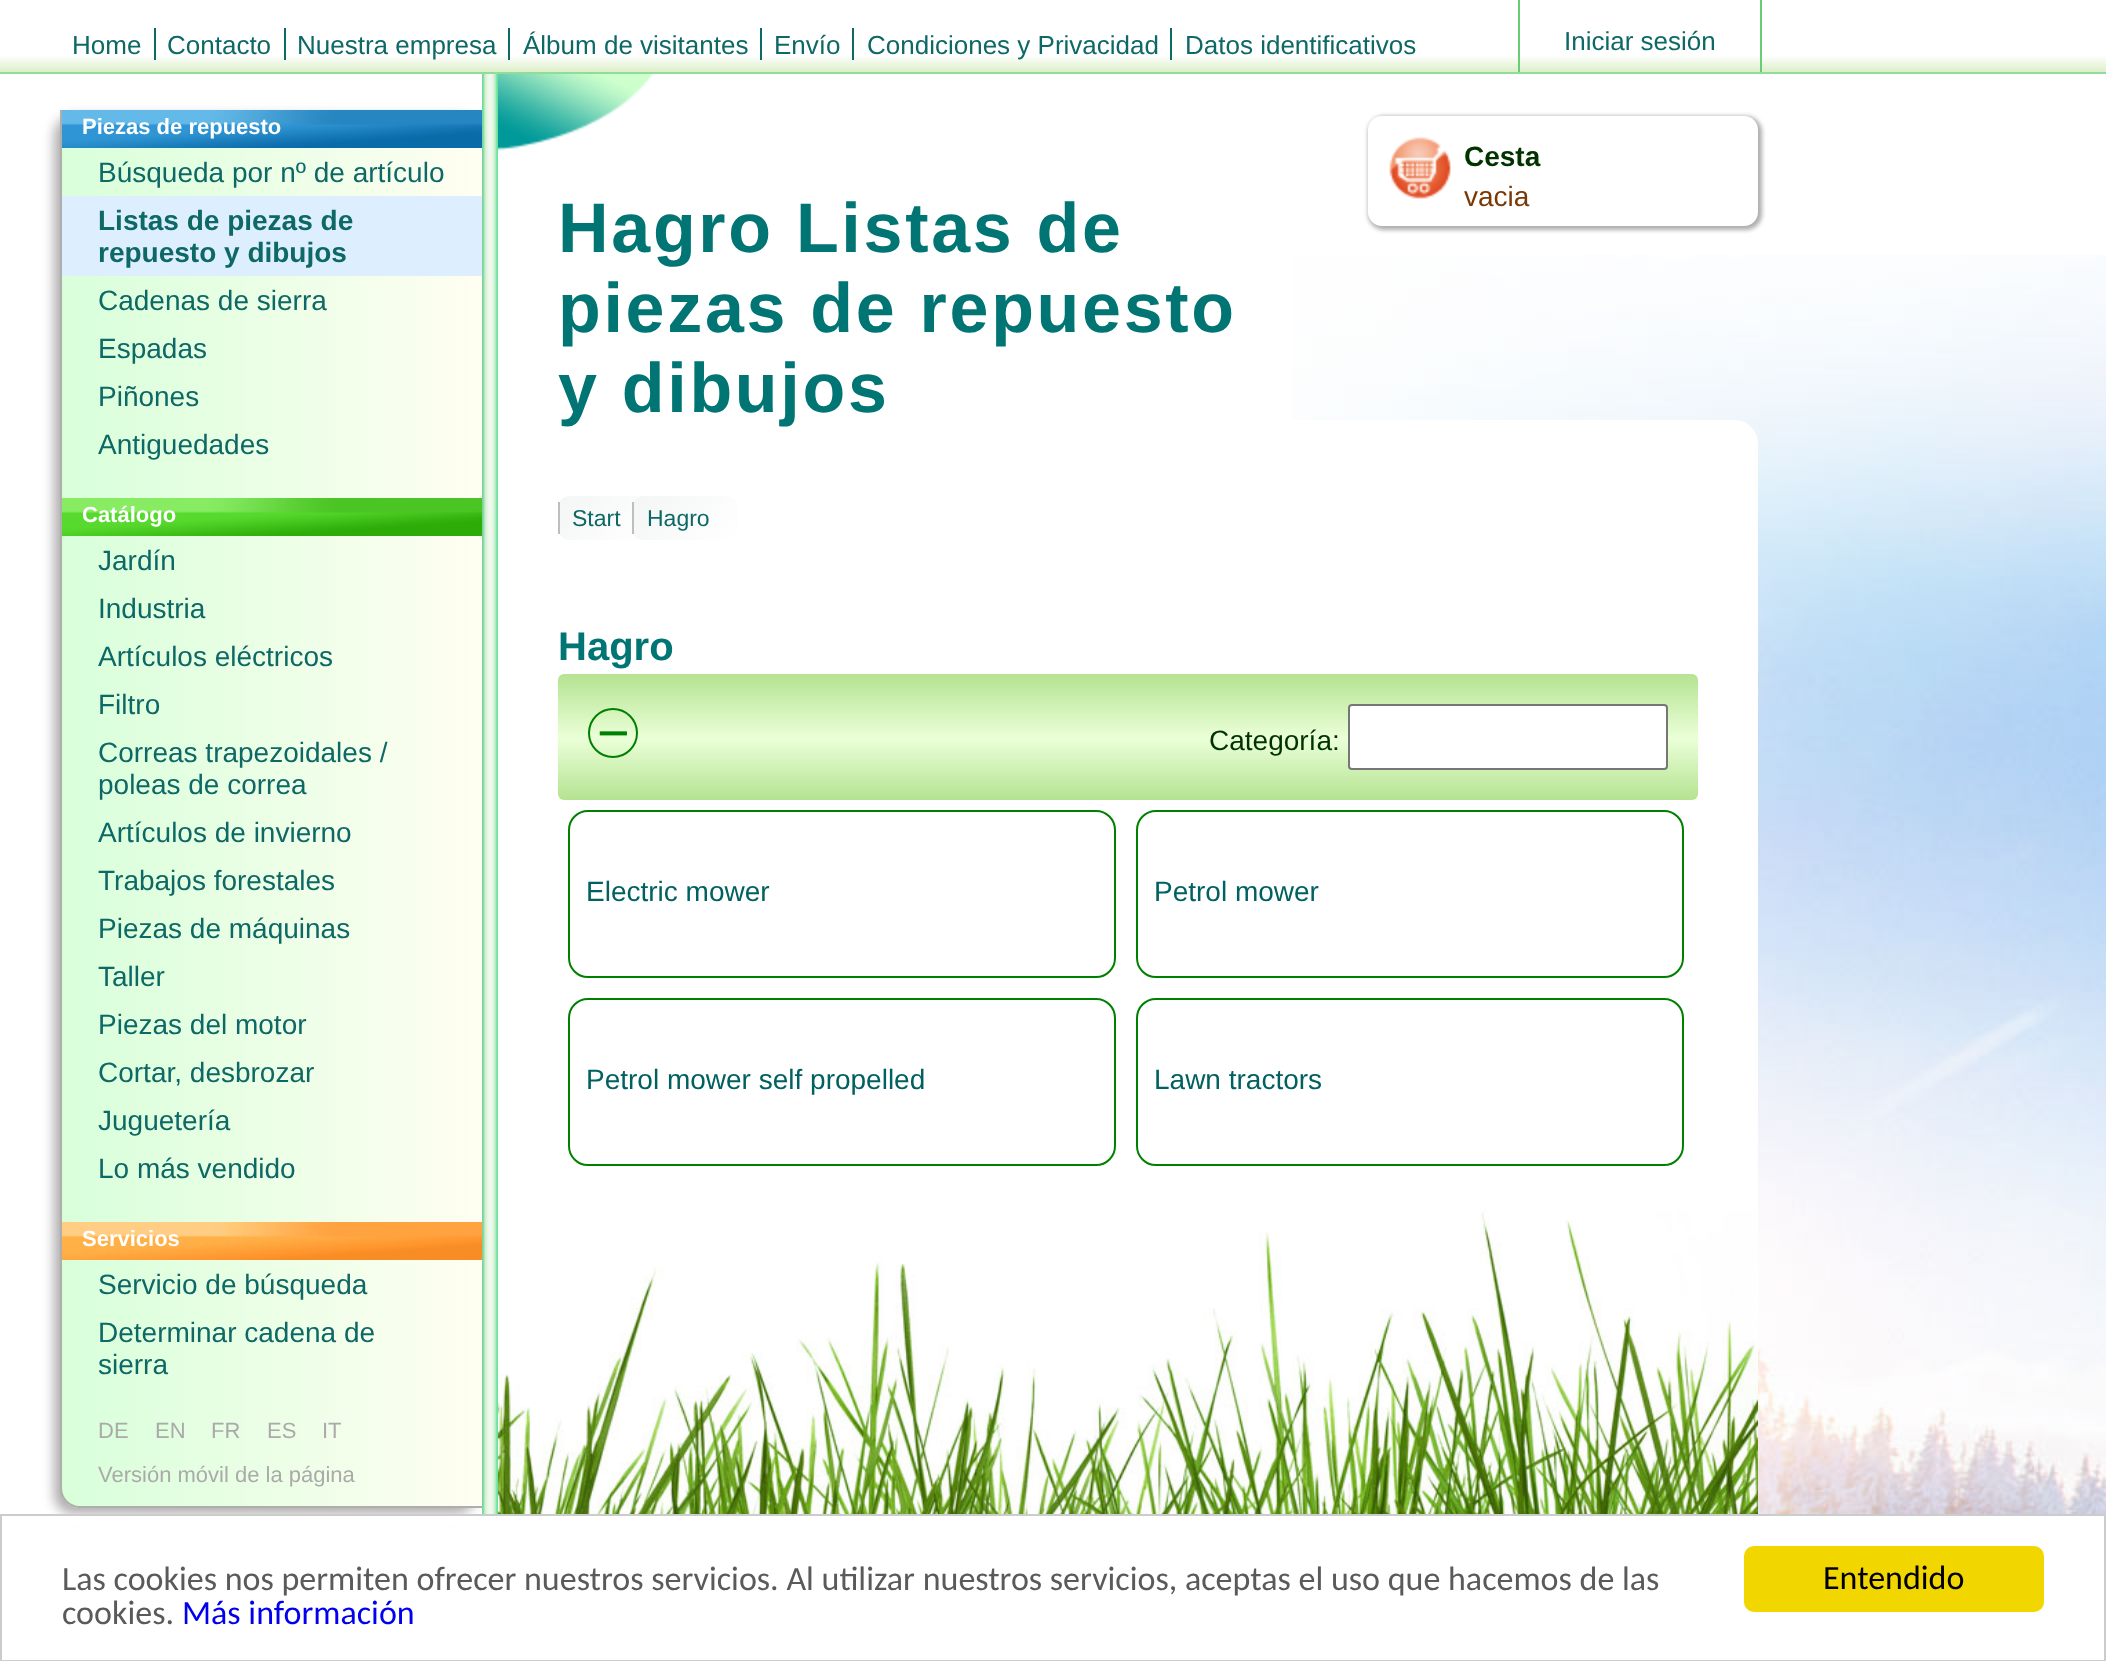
async function draw(canvas) {
	canvas.width = 2106;
	canvas.height = 1661;
	const c = canvas.getContext('2d');
	c.miterLimit = 4;
	c.fontKerning = 'normal';
	async function loadImage(src) {
		const img = new Image();
		img.src = src;
		await img.decode();
		return img;
	}
	let gradient;

	c.fillStyle = '#fff';
	c.fillRect(0, 0, 2106, 1661);
	c.drawImage(await loadImage('img1.png'), 1292, 255, 814, 1259);
	gradient = c.createLinearGradient(1053, 18, 1053, 72);
	gradient.addColorStop(0.69, '#fff');
	gradient.addColorStop(1, '#dcefc7');
	c.fillStyle = gradient;
	c.fillRect(0, 56, 2106, 16);
	c.fillStyle = '#91db9b';
	c.fillRect(0, 72, 2106, 2);
	c.font = '26px Liberation Sans';
	c.fillStyle = '#0d6866';
	c.fillText('Home', 72, 54);
	c.fillRect(154, 28, 2, 32);
	c.fillText('Contacto', 167, 54);
	c.fillRect(284, 28, 2, 32);
	c.fillText('Nuestra empresa', 297, 54);
	c.fillRect(508, 28, 2, 32);
	c.fillText('Álbum de visitantes', 523, 54);
	c.fillRect(760, 28, 2, 32);
	c.fillText('Envío', 774, 54);
	c.fillRect(852, 28, 2, 32);
	c.fillText('Condiciones y Privacidad', 867, 54);
	c.fillRect(1170, 28, 2, 32);
	c.fillText('Datos identificativos', 1185, 54);
	c.fillStyle = '#68cd76';
	c.beginPath();
	c.moveTo(1530, -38);
	c.lineTo(1750, -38);
	c.bezierCurveTo(1757, -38, 1762, -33, 1762, -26);
	c.lineTo(1762, 72);
	c.lineTo(1518, 72);
	c.lineTo(1518, -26);
	c.bezierCurveTo(1518, -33, 1523, -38, 1530, -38);
	c.closePath();
	c.moveTo(1530, -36);
	c.lineTo(1750, -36);
	c.bezierCurveTo(1756, -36, 1760, -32, 1760, -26);
	c.lineTo(1760, 72);
	c.lineTo(1520, 72);
	c.lineTo(1520, -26);
	c.bezierCurveTo(1520, -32, 1524, -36, 1530, -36);
	c.closePath();
	c.fill('evenodd');
	c.fillStyle = '#0d6866';
	c.fillText('Iniciar sesión', 1564, 50);
	c.drawImage(await loadImage('img5.png'), 482, 74, 16, 1440);
	c.fillStyle = '#b0adad';
	c.filter = 'blur(6px)';
	c.beginPath();
	c.roundRect(54, 116, 422, 1398, 20);
	c.fill();
	c.filter = 'none';
	c.save();
	c.beginPath();
	c.roundRect(60, 110, 422, 1398, [0, 0, 0, 20]);
	c.clip();
	gradient = c.createLinearGradient(62, 808, 482, 808);
	gradient.addColorStop(0, '#d8ffda');
	gradient.addColorStop(1, '#fffef2');
	c.fillStyle = gradient;
	c.fillRect(62, 148, 420, 1360);
	c.restore();
	c.beginPath();
	c.moveTo(60, 110);
	c.lineTo(482, 110);
	c.lineTo(482, 1508);
	c.lineTo(80, 1508);
	c.bezierCurveTo(69, 1508, 60, 1499, 60, 1488);
	c.closePath();
	c.moveTo(62, 110);
	c.lineTo(482, 110);
	c.lineTo(482, 1506);
	c.lineTo(80, 1506);
	c.bezierCurveTo(70, 1506, 62, 1498, 62, 1488);
	c.closePath();
	c.fill('evenodd');
	c.drawImage(await loadImage('img2.png'), 62, 110, 420, 38);
	c.font = 'bold 22px Liberation Sans';
	c.fillStyle = '#fff';
	c.fillText('Piezas de repuesto', 82, 134);
	c.font = '28px Liberation Sans';
	c.fillStyle = '#0d6866';
	c.fillText('Búsqueda por nº de artículo', 98, 182);
	c.fillStyle = '#def';
	c.fillRect(62, 196, 420, 80);
	c.font = 'bold 28px Liberation Sans';
	c.fillStyle = '#0d6866';
	c.fillText('Listas de piezas de', 98, 230);
	c.fillText('repuesto y dibujos', 98, 262);
	c.font = '28px Liberation Sans';
	for (const [text, x, y] of [
		['Cadenas de sierra', 98, 310],
		['Espadas', 98, 358],
		['Piñones', 98, 406],
		['Antiguedades', 98, 454],
	]) {
		c.fillText(text, x, y);
	}
	c.drawImage(await loadImage('img3.png'), 62, 498, 420, 38);
	c.font = 'bold 22px Liberation Sans';
	c.fillStyle = '#fff';
	c.fillText('Catálogo', 82, 522);
	c.font = '28px Liberation Sans';
	c.fillStyle = '#0d6866';
	for (const [text, x, y] of [
		['Jardín', 98, 570],
		['Industria', 98, 618],
		['Artículos eléctricos', 98, 666],
		['Filtro', 98, 714],
		['Correas trapezoidales /', 98, 762],
		['poleas de correa', 98, 794],
		['Artículos de invierno', 98, 842],
		['Trabajos forestales', 98, 890],
		['Piezas de máquinas', 98, 938],
		['Taller', 98, 986],
		['Piezas del motor', 98, 1034],
		['Cortar, desbrozar', 98, 1082],
		['Juguetería', 98, 1130],
		['Lo más vendido', 98, 1178],
	]) {
		c.fillText(text, x, y);
	}
	c.drawImage(await loadImage('img4.png'), 62, 1222, 420, 38);
	c.font = 'bold 22px Liberation Sans';
	c.fillStyle = '#fff';
	c.fillText('Servicios', 82, 1246);
	c.font = '28px Liberation Sans';
	c.fillStyle = '#0d6866';
	for (const [text, x, y] of [
		['Servicio de búsqueda', 98, 1294],
		['Determinar cadena de', 98, 1342],
		['sierra', 98, 1374],
	]) {
		c.fillText(text, x, y);
	}
	c.font = '22px Liberation Sans';
	c.fillStyle = '#aaa';
	for (const [text, x, y] of [
		['DE', 98, 1438],
		['EN', 155, 1438],
		['FR', 211, 1438],
		['ES', 267, 1438],
		['IT', 322, 1438],
		['Versión móvil de la página', 98, 1482],
	]) {
		c.fillText(text, x, y);
	}
	c.drawImage(await loadImage('img6.png'), 498, 74, 155, 77);
	c.letterSpacing = '2.7px';
	c.font = 'bold 70px Liberation Sans';
	c.fillStyle = '#017474';
	c.fillText('Hagro Listas de', 558, 252);
	c.fillText('piezas de repuesto', 558, 332);
	c.fillStyle = '#fff';
	c.beginPath();
	c.moveTo(498, 420);
	c.lineTo(1734, 420);
	c.bezierCurveTo(1747.5, 420, 1758, 430.5, 1758, 444);
	c.lineTo(1758, 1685);
	c.lineTo(498, 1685);
	c.closePath();
	c.fill();
	c.fillStyle = '#017474';
	c.fillText('y dibujos', 558, 412);
	c.save();
	c.beginPath();
	c.roundRect(558, 496, 90, 44, 12);
	c.clip();
	gradient = c.createLinearGradient(571, 485, 637, 551);
	gradient.addColorStop(0, '#f3f6f4');
	gradient.addColorStop(1, '#fff');
	c.fillStyle = gradient;
	c.beginPath();
	c.roundRect(560, 496, 88, 44, [0, 12, 12, 0]);
	c.fill();
	c.restore();
	c.fillStyle = '#bfbebe';
	c.fillRect(558, 502, 2, 32);
	c.letterSpacing = '0px';
	c.font = '23px Liberation Sans';
	c.fillStyle = '#0d6866';
	c.fillText('Start', 572, 526);
	c.save();
	c.beginPath();
	c.roundRect(632, 496, 106, 44, 12);
	c.clip();
	gradient = c.createLinearGradient(649, 481, 723, 555);
	gradient.addColorStop(0, '#f3f6f4');
	gradient.addColorStop(1, '#fff');
	c.fillStyle = gradient;
	c.beginPath();
	c.roundRect(634, 496, 104, 44, [0, 12, 12, 0]);
	c.fill();
	c.restore();
	c.fillStyle = '#bfbebe';
	c.fillRect(632, 502, 2, 32);
	c.fillStyle = '#0d6866';
	c.fillText('Hagro', 647, 526);
	c.font = 'bold 40px Liberation Sans';
	c.fillStyle = '#017474';
	c.fillText('Hagro', 558, 660);
	gradient = c.createLinearGradient(1128, 674, 1128, 800);
	gradient.addColorStop(0, '#b4e391');
	gradient.addColorStop(0.51, '#ebffd8');
	gradient.addColorStop(1, '#b4e391');
	c.fillStyle = gradient;
	c.beginPath();
	c.roundRect(558, 674, 1140, 126, 6);
	c.fill();
	c.beginPath();
	c.arc(613, 733, 24, 0, 2 * Math.PI);
	c.strokeStyle = '#008000';
	c.lineWidth = 2;
	c.stroke();
	c.font = '56px Liberation Sans';
	c.fillStyle = '#008000';
	c.fillText('−', 597, 752);
	c.font = '28px Liberation Sans';
	c.fillStyle = '#030';
	c.fillText('Categoría:', 1209, 750);
	c.fillStyle = '#fff';
	c.beginPath();
	c.roundRect(1349, 705, 318, 64, 3);
	c.fill();
	c.strokeStyle = '#767676';
	c.stroke();
	c.beginPath();
	c.roundRect(569, 811, 546, 166, 19);
	c.strokeStyle = '#008000';
	c.stroke();
	c.fillStyle = '#016060';
	c.fillText('Electric mower', 586, 901);
	c.beginPath();
	c.roundRect(1137, 811, 546, 166, 19);
	c.stroke();
	c.fillText('Petrol mower', 1154, 901);
	c.beginPath();
	c.roundRect(569, 999, 546, 166, 19);
	c.stroke();
	c.fillText('Petrol mower self propelled', 586, 1089);
	c.beginPath();
	c.roundRect(1137, 999, 546, 166, 19);
	c.stroke();
	c.fillText('Lawn tractors', 1154, 1089);
	c.drawImage(await loadImage('img7.png'), 498, 1210, 1260, 304);
	c.fillStyle = '#b0adad';
	c.filter = 'blur(2px)';
	c.beginPath();
	c.roundRect(1368, 116, 394, 114, 16);
	c.fill();
	c.filter = 'none';
	c.fillStyle = '#fff';
	c.beginPath();
	c.roundRect(1368, 116, 390, 110, 14);
	c.fill();
	c.drawImage(await loadImage('img8.png'), 1389, 137, 62, 62);
	c.font = 'bold 28px Liberation Sans';
	c.fillStyle = '#030';
	c.fillText('Cesta', 1464, 166);
	c.font = '28px Liberation Sans';
	c.fillStyle = '#7a3805';
	c.fillText('vacia', 1464, 206);
	c.fillStyle = '#fff';
	c.fillRect(54, 1516, 422, 9);
	c.strokeStyle = '#ccc';
	c.strokeRect(1, 1515, 2104, 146);
	c.font = '34px Carlito';
	c.fillStyle = '#5a5a5a';
	c.fillText('Las cookies nos permiten ofrecer nuestros servicios. Al utilizar nuestros servicios, aceptas el uso que hacemos de las', 62, 1590);
	c.fillText('cookies.', 62, 1624);
	c.fillStyle = '#00e';
	c.fillText('Más información', 182, 1624);
	c.fillStyle = '#f1d600';
	c.beginPath();
	c.roundRect(1744, 1546, 300, 66, 10);
	c.fill();
	c.fillStyle = '#000';
	c.fillText('Entendido', 1823, 1589);
}

draw(document.querySelector('canvas'));
